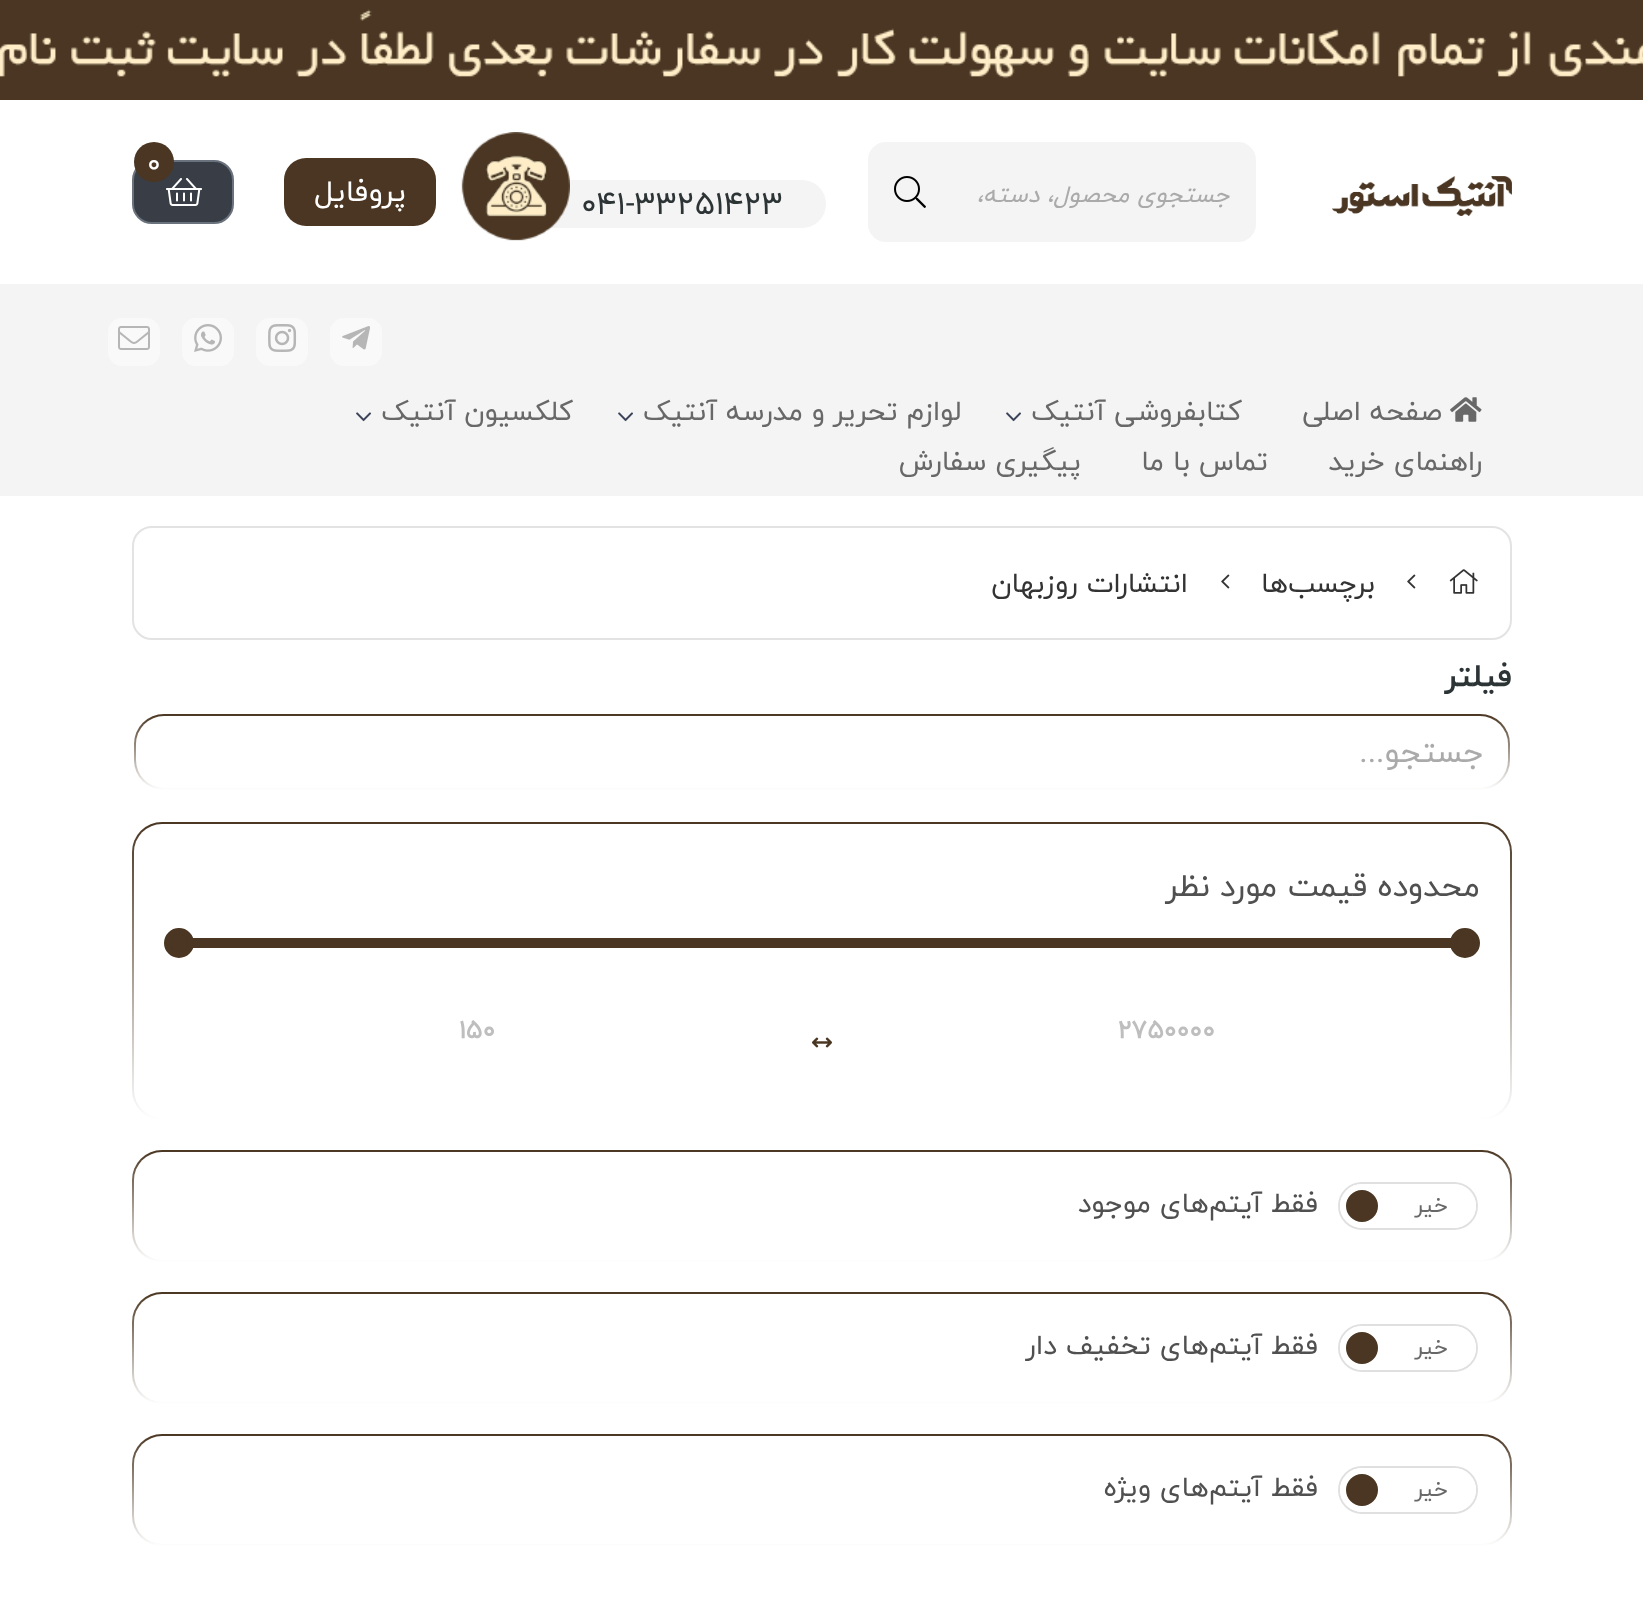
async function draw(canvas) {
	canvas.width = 1643;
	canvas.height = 1610;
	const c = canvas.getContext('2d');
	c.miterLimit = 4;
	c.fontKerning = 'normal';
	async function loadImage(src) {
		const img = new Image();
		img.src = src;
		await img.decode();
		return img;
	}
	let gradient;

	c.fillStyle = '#fff';
	c.fillRect(0, 0, 1643, 1610);
	c.drawImage(await loadImage('img1.png'), 0, 0, 1643, 100);
	c.drawImage(await loadImage('img2.png'), 1332, 176, 180, 40);
	c.fillStyle = '#f5f4f4';
	c.beginPath();
	c.roundRect(951, 143, 304, 98, [0, 17, 17, 0]);
	c.fill();
	c.strokeStyle = '#f5f4f4';
	c.lineWidth = 2;
	c.stroke();
	c.save();
	c.beginPath();
	c.rect(976, 174, 254, 42);
	c.clip();
	c.direction = 'rtl';
	c.font = 'italic 24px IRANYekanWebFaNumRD';
	c.fillStyle = '#aaa';
	c.fillText('جستجوی محصول، دسته، برند...', 1230, 202);
	c.restore();
	c.beginPath();
	c.roundRect(869, 143, 82, 98, [17, 0, 0, 17]);
	c.fill();
	c.stroke();
	c.drawImage(await loadImage('img3.png'), 894, 176, 32, 32);
	c.fillStyle = '#393e46';
	c.beginPath();
	c.roundRect(133, 161, 100, 62, 19);
	c.fill();
	c.strokeStyle = '#69727d';
	c.stroke();
	c.drawImage(await loadImage('img4.png'), 166, 178, 36, 28);
	c.fillStyle = '#4a3622';
	c.beginPath();
	c.arc(154, 162, 20, 0, 2 * Math.PI);
	c.fill();
	c.font = '28px IRANYekanWebFaNumRD';
	c.fillStyle = '#fff';
	c.fillText('0', 147, 172);
	c.fillStyle = '#f5f4f4';
	c.beginPath();
	c.roundRect(536, 180, 290, 48, [0, 24, 24, 0]);
	c.fill();
	c.font = '32px IRANYekanWebFaNumRD';
	c.fillStyle = '#2d3436';
	c.fillText('041-33251423', 581, 214);
	c.drawImage(await loadImage('img5.png'), 461, 132, 109, 109);
	c.fillStyle = '#4a3622';
	c.beginPath();
	c.roundRect(284, 158, 152, 68, 22);
	c.fill();
	c.direction = 'rtl';
	c.font = '30px IRANYekanWebFaNumRD';
	c.fillStyle = '#fff';
	c.fillText('پروفایل', 406, 201);
	c.fillStyle = '#f5f4f4';
	c.fillRect(0, 284, 1643, 212);
	c.fillStyle = '#faf9f9';
	c.beginPath();
	c.roundRect(330, 318, 52, 48, 14);
	c.fill();
	c.drawImage(await loadImage('img6.png'), 342, 326, 28, 24);
	c.beginPath();
	c.roundRect(256, 318, 52, 48, 14);
	c.fill();
	c.drawImage(await loadImage('img7.png'), 268, 324, 29, 28);
	c.beginPath();
	c.roundRect(182, 318, 52, 48, 14);
	c.fill();
	c.drawImage(await loadImage('img8.png'), 194, 324, 28, 28);
	c.beginPath();
	c.roundRect(108, 318, 52, 48, 14);
	c.fill();
	c.drawImage(await loadImage('img9.png'), 118, 326, 32, 24);
	c.drawImage(await loadImage('img10.png'), 1450, 397, 32, 25);
	c.font = '28px IRANYekanWebFaNumRD';
	c.fillStyle = '#686868';
	c.fillText('صفحه اصلی', 1442, 420);
	c.fillText('کتابفروشی آنتیک', 1242, 420);
	c.drawImage(await loadImage('img11.png'), 1006, 412, 15, 10);
	c.fillText('لوازم تحریر و مدرسه آنتیک', 961, 420);
	c.drawImage(await loadImage('img11.png'), 618, 412, 15, 10);
	c.fillText('کلکسیون آنتیک', 573, 420);
	c.drawImage(await loadImage('img11.png'), 356, 412, 15, 10);
	for (const [text, x, y] of [
		['راهنمای خرید', 1482, 470],
		['تماس با ما', 1268, 470],
		['پیگیری سفارش', 1081, 470],
	]) {
		c.fillText(text, x, y);
	}
	c.beginPath();
	c.roundRect(133, 527, 1378, 112, 19);
	c.strokeStyle = '#e3e3e3';
	c.stroke();
	c.drawImage(await loadImage('img12.png'), 1449, 569, 29, 25);
	c.drawImage(await loadImage('img13.png'), 1407, 574, 9, 15);
	c.fillStyle = '#333';
	c.fillText('برچسب‌ها', 1375, 592);
	c.drawImage(await loadImage('img13.png'), 1221, 574, 9, 15);
	c.fillText('انتشارات روزبهان', 1188, 592);
	c.font = 'bold 32px IRANYekanWebFaNumRD';
	c.fillStyle = '#2d3436';
	c.fillText('فیلتر', 1512, 686);
	gradient = c.createLinearGradient(822, 714, 822, 790);
	gradient.addColorStop(0, '#4a3622');
	gradient.addColorStop(1, '#fff');
	c.fillStyle = gradient;
	c.beginPath();
	c.roundRect(134, 714, 1376, 76, 30);
	c.fill();
	c.fillStyle = '#fff';
	c.beginPath();
	c.roundRect(136, 716, 1372, 72, 28);
	c.fill();
	c.font = '32px IRANYekanWebFaNumRD';
	c.fillStyle = '#aaa';
	c.fillText('جستجو...', 1484, 762);
	gradient = c.createLinearGradient(822, 822, 822, 1120);
	gradient.addColorStop(0, '#4a3622');
	gradient.addColorStop(1, '#fff');
	c.fillStyle = gradient;
	c.beginPath();
	c.roundRect(132, 822, 1380, 298, 30);
	c.fill();
	c.fillStyle = '#fff';
	c.beginPath();
	c.roundRect(134, 824, 1376, 294, 28);
	c.fill();
	c.fillStyle = '#505050';
	c.fillText('محدوده قیمت مورد نظر', 1480, 896);
	c.fillStyle = '#4a3622';
	c.fillRect(193, 938, 1258, 10);
	c.beginPath();
	c.arc(1465, 943, 12, 0, 2 * Math.PI);
	c.fill();
	c.strokeStyle = '#4a3622';
	c.lineWidth = 6;
	c.stroke();
	c.beginPath();
	c.arc(179, 943, 12, 0, 2 * Math.PI);
	c.fill();
	c.stroke();
	c.direction = 'ltr';
	c.font = 'bold 26px IRANYekanWebFaNumRD';
	c.fillStyle = '#bfbebe';
	c.fillText('2750000', 1118, 1038);
	c.fillText('150', 459, 1038);
	c.drawImage(await loadImage('img14.png'), 812, 1037, 20, 11);
	gradient = c.createLinearGradient(822, 1150, 822, 1262);
	gradient.addColorStop(0, '#4a3622');
	gradient.addColorStop(1, '#fff');
	c.fillStyle = gradient;
	c.beginPath();
	c.roundRect(132, 1150, 1380, 112, 30);
	c.fill();
	c.fillStyle = '#fff';
	c.beginPath();
	c.roundRect(134, 1152, 1376, 108, 28);
	c.fill();
	c.beginPath();
	c.roundRect(1339, 1183, 138, 46, 23);
	c.strokeStyle = '#e0e0e0';
	c.lineWidth = 2;
	c.stroke();
	c.beginPath();
	c.roundRect(1362, 1184, 114, 44, [0, 22, 22, 0]);
	c.fill();
	c.direction = 'rtl';
	c.font = '22px IRANYekanWebFaNumRD';
	c.fillStyle = '#686868';
	c.fillText('خیر', 1448, 1212);
	c.fillStyle = '#4a3622';
	c.beginPath();
	c.arc(1362, 1206, 19, 0, 2 * Math.PI);
	c.fill();
	c.strokeStyle = '#fff';
	c.lineWidth = 6;
	c.stroke();
	c.font = '28px IRANYekanWebFaNumRD';
	c.fillStyle = '#505050';
	c.fillText('فقط آیتم‌های موجود', 1318, 1212);
	gradient = c.createLinearGradient(822, 1292, 822, 1404);
	gradient.addColorStop(0, '#4a3622');
	gradient.addColorStop(1, '#fff');
	c.fillStyle = gradient;
	c.beginPath();
	c.roundRect(132, 1292, 1380, 112, 30);
	c.fill();
	c.fillStyle = '#fff';
	c.beginPath();
	c.roundRect(134, 1294, 1376, 108, 28);
	c.fill();
	c.beginPath();
	c.roundRect(1339, 1325, 138, 46, 23);
	c.strokeStyle = '#e0e0e0';
	c.lineWidth = 2;
	c.stroke();
	c.beginPath();
	c.roundRect(1362, 1326, 114, 44, [0, 22, 22, 0]);
	c.fill();
	c.font = '22px IRANYekanWebFaNumRD';
	c.fillStyle = '#686868';
	c.fillText('خیر', 1448, 1354);
	c.fillStyle = '#4a3622';
	c.beginPath();
	c.arc(1362, 1348, 19, 0, 2 * Math.PI);
	c.fill();
	c.strokeStyle = '#fff';
	c.lineWidth = 6;
	c.stroke();
	c.font = '28px IRANYekanWebFaNumRD';
	c.fillStyle = '#505050';
	c.fillText('فقط آیتم‌های تخفیف دار', 1318, 1354);
	gradient = c.createLinearGradient(822, 1434, 822, 1546);
	gradient.addColorStop(0, '#4a3622');
	gradient.addColorStop(1, '#fff');
	c.fillStyle = gradient;
	c.beginPath();
	c.roundRect(132, 1434, 1380, 112, 30);
	c.fill();
	c.fillStyle = '#fff';
	c.beginPath();
	c.roundRect(134, 1436, 1376, 108, 28);
	c.fill();
	c.beginPath();
	c.roundRect(1339, 1467, 138, 46, 23);
	c.strokeStyle = '#e0e0e0';
	c.lineWidth = 2;
	c.stroke();
	c.beginPath();
	c.roundRect(1362, 1468, 114, 44, [0, 22, 22, 0]);
	c.fill();
	c.font = '22px IRANYekanWebFaNumRD';
	c.fillStyle = '#686868';
	c.fillText('خیر', 1448, 1496);
	c.fillStyle = '#4a3622';
	c.beginPath();
	c.arc(1362, 1490, 19, 0, 2 * Math.PI);
	c.fill();
	c.strokeStyle = '#fff';
	c.lineWidth = 6;
	c.stroke();
	c.font = '28px IRANYekanWebFaNumRD';
	c.fillStyle = '#505050';
	c.fillText('فقط آیتم‌های ویژه', 1318, 1496);
}

draw(document.querySelector('canvas'));
